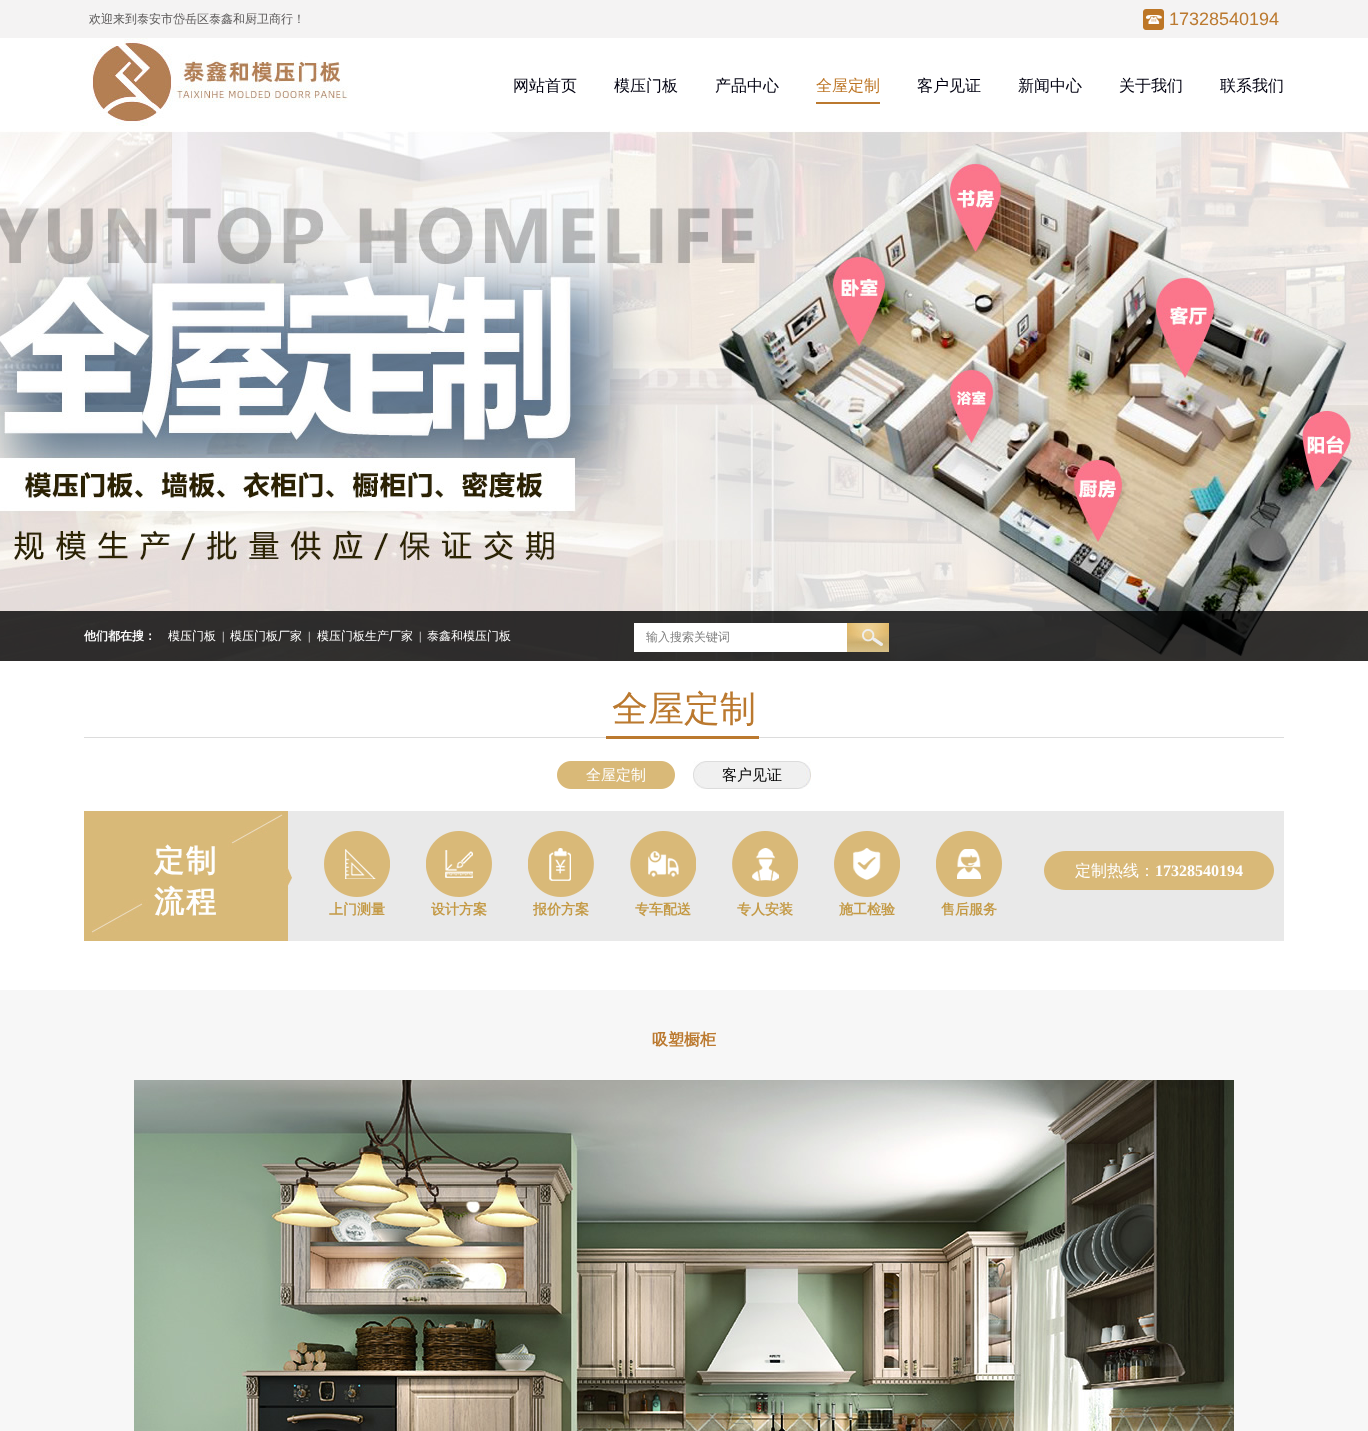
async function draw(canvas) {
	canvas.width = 1368;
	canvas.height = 1431;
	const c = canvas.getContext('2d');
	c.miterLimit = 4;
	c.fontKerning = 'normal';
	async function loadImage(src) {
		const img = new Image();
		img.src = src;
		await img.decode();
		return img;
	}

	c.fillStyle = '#fff';
	c.fillRect(0, 0, 1368, 1431);
	c.fillStyle = '#f4f3f3';
	c.fillRect(0, 0, 1368, 38);
	c.font = '500 12px WenQuanYi Zen Hei';
	c.fillStyle = '#5a5858';
	c.fillText('欢迎来到泰安市岱岳区泰鑫和厨卫商行！', 89, 23);
	c.drawImage(await loadImage('img1.png'), 1143, 9, 21, 21);
	c.font = '18px Liberation Sans';
	c.fillStyle = '#bb792f';
	c.fillText('17328540194', 1169, 25);
	c.drawImage(await loadImage('img2.png'), 92, 38, 256, 88);
	c.font = '500 16px WenQuanYi Zen Hei';
	c.fillStyle = '#010010';
	for (const [text, x, y] of [
		['网站首页', 513, 91],
		['模压门板', 614, 91],
		['产品中心', 715, 91],
	]) {
		c.fillText(text, x, y);
	}
	c.fillStyle = '#bb792f';
	c.fillRect(816, 102, 64, 2);
	c.fillStyle = '#bd7626';
	c.fillText('全屋定制', 816, 91);
	c.fillStyle = '#010010';
	for (const [text, x, y] of [
		['客户见证', 917, 91],
		['新闻中心', 1018, 91],
		['关于我们', 1119, 91],
		['联系我们', 1220, 91],
	]) {
		c.fillText(text, x, y);
	}
	c.drawImage(await loadImage('img3.png'), 0, 131, 1368, 530);
	c.fillStyle = '#000000cc';
	c.fillRect(0, 611, 1368, 50);
	c.font = 'bold 12px WenQuanYi Zen Hei';
	c.fillStyle = '#fefefe';
	c.fillText('他们都在搜：', 84, 640);
	c.font = '500 12px WenQuanYi Zen Hei';
	c.fillText('模压门板', 168, 640);
	c.font = '12px Liberation Serif';
	c.fillText('|', 222, 640);
	c.font = '500 12px WenQuanYi Zen Hei';
	c.fillText('模压门板厂家', 230, 640);
	c.font = '12px Liberation Serif';
	c.fillText('|', 308, 640);
	c.font = '500 12px WenQuanYi Zen Hei';
	c.fillText('模压门板生产厂家', 317, 640);
	c.font = '12px Liberation Serif';
	c.fillText('|', 419, 640);
	c.font = '500 12px WenQuanYi Zen Hei';
	c.fillText('泰鑫和模压门板', 427, 640);
	c.fillStyle = '#fff';
	c.fillRect(634, 623, 213, 29);
	c.fillStyle = '#818181';
	c.fillText('输入搜索关键词', 646, 641);
	c.drawImage(await loadImage('img4.png'), 847, 623, 42, 29);
	c.drawImage(await loadImage('img5.png'), 84, 736, 1200, 3);
	c.font = '500 36px WenQuanYi Zen Hei';
	c.fillStyle = '#bb792f';
	c.fillText('全屋定制', 612, 721);
	c.drawImage(await loadImage('img6.png'), 557, 761, 118, 28);
	c.font = '500 15px WenQuanYi Zen Hei';
	c.fillStyle = '#fefefe';
	c.fillText('全屋定制', 586, 780);
	c.drawImage(await loadImage('img7.png'), 693, 761, 118, 28);
	c.fillStyle = '#000';
	c.fillText('客户见证', 722, 780);
	c.drawImage(await loadImage('img8.png'), 84, 811, 1200, 130);
	c.letterSpacing = '2px';
	c.font = 'bold 30px WenQuanYi Zen Hei';
	c.fillStyle = '#fefefe';
	c.fillText('定制', 154, 871);
	c.fillText('流程', 154, 912);
	c.drawImage(await loadImage('img9.png'), 324, 831, 66, 66);
	c.letterSpacing = '0px';
	c.font = 'bold 14px WenQuanYi Zen Hei';
	c.fillStyle = '#c49a46';
	c.fillText('上门测量', 329, 914);
	c.drawImage(await loadImage('img10.png'), 426, 831, 66, 66);
	c.fillText('设计方案', 431, 914);
	c.drawImage(await loadImage('img11.png'), 528, 831, 66, 66);
	c.fillText('报价方案', 533, 914);
	c.drawImage(await loadImage('img12.png'), 630, 831, 66, 66);
	c.fillText('专车配送', 635, 914);
	c.drawImage(await loadImage('img13.png'), 732, 831, 66, 66);
	c.fillText('专人安装', 737, 914);
	c.drawImage(await loadImage('img14.png'), 834, 831, 66, 66);
	c.fillText('施工检验', 839, 914);
	c.drawImage(await loadImage('img15.png'), 936, 831, 66, 66);
	c.fillText('售后服务', 941, 914);
	c.drawImage(await loadImage('img16.png'), 1044, 851, 230, 39);
	c.font = '500 16px WenQuanYi Zen Hei';
	c.fillStyle = '#fefefe';
	c.fillText('定制热线：', 1075, 876);
	c.font = 'bold 16px Liberation Serif';
	c.fillText('17328540194', 1155, 876);
	c.fillStyle = '#f7f7f7';
	c.fillRect(0, 990, 1368, 441);
	c.font = 'bold 16px WenQuanYi Zen Hei';
	c.fillStyle = '#bb792f';
	c.fillText('吸塑橱柜', 652, 1045);
	c.drawImage(await loadImage('img17.png'), 134, 1080, 1100, 351);
}

draw(document.querySelector('canvas'));
